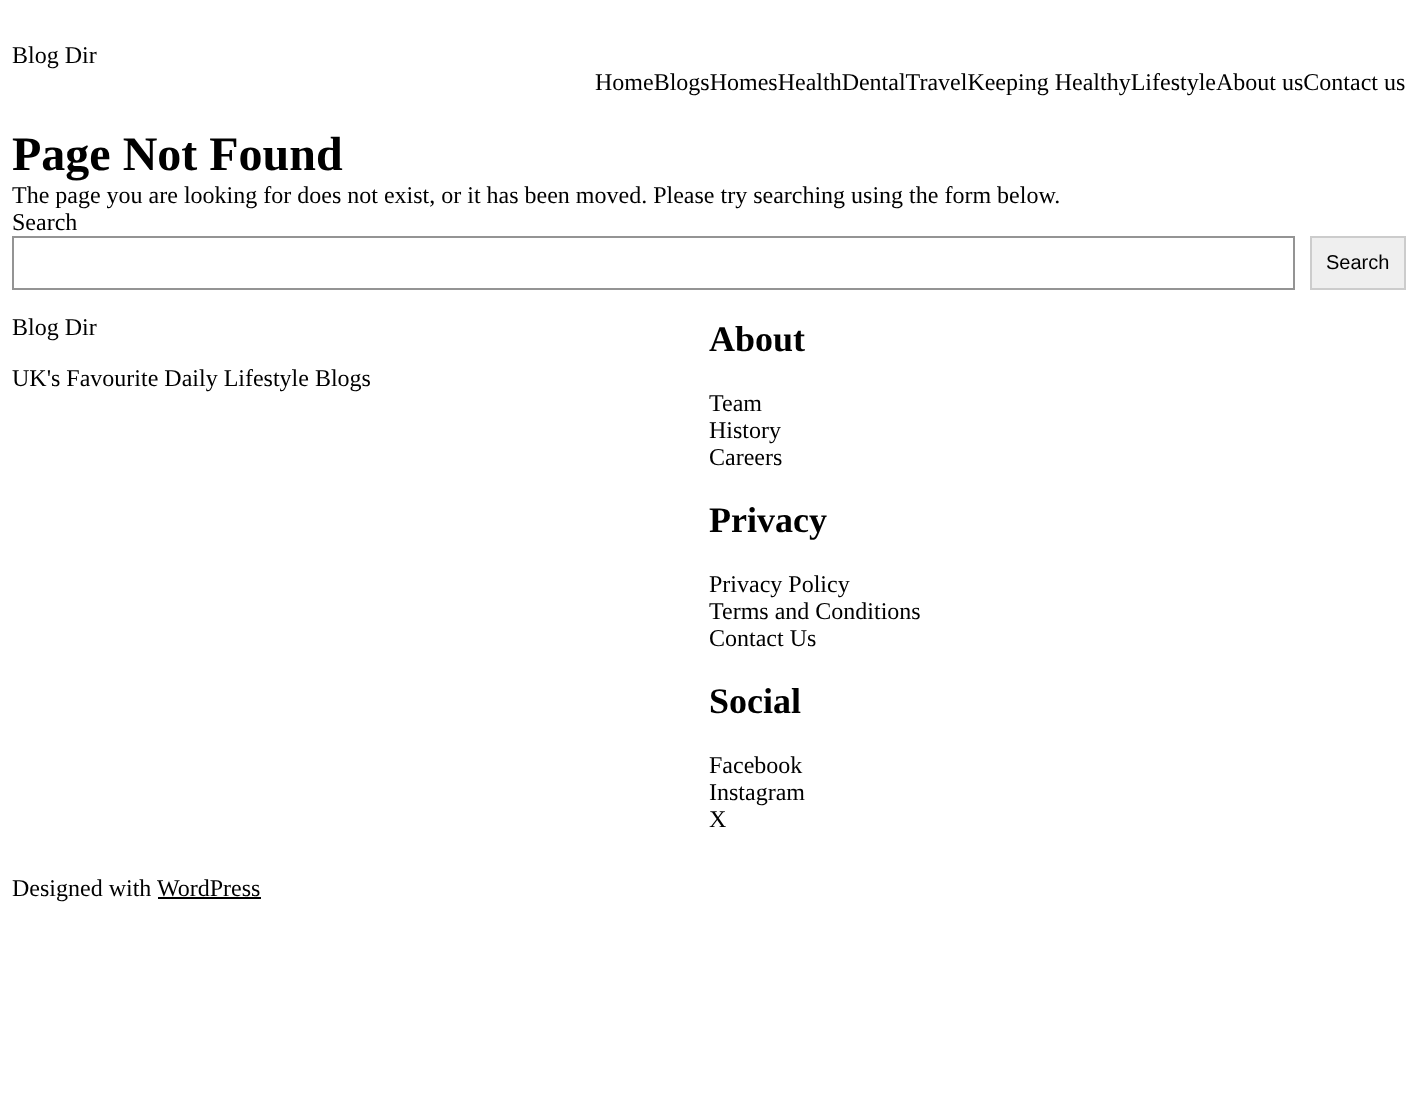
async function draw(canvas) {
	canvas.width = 1417;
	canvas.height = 1110;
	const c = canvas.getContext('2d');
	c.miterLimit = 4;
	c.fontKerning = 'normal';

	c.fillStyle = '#fff';
	c.fillRect(0, 0, 1417, 1110);
	c.font = '24px Liberation Serif';
	c.fillStyle = '#000';
	c.fillText('Blog Dir', 12, 63);
	c.fillText('HomeBlogsHomesHealthDentalTravelKeeping HealthyLifestyleAbout usContact us', 595, 90);
	c.font = 'bold 48px Liberation Serif';
	c.fillText('Page Not Found', 12, 170);
	c.font = '24px Liberation Serif';
	c.fillText('The page you are looking for does not exist, or it has been moved. Please try searching using the form below.', 12, 203);
	c.fillText('Search', 12, 230);
	c.strokeStyle = '#949494';
	c.lineWidth = 2;
	c.strokeRect(13, 237, 1281, 52);
	c.fillStyle = '#efefef';
	c.beginPath();
	c.rect(1311, 237, 94, 52);
	c.fill();
	c.strokeStyle = '#ccc';
	c.stroke();
	c.font = '20px Liberation Sans';
	c.fillStyle = '#000';
	c.fillText('Search', 1326, 269);
	c.font = '24px Liberation Serif';
	c.fillText('Blog Dir', 12, 335);
	c.fillText('UK\'s Favourite Daily Lifestyle Blogs', 12, 386);
	c.font = 'bold 36px Liberation Serif';
	c.fillText('About', 709, 351);
	c.font = '24px Liberation Serif';
	for (const [text, x, y] of [
		['Team', 709, 411],
		['History', 709, 438],
		['Careers', 709, 465],
	]) {
		c.fillText(text, x, y);
	}
	c.font = 'bold 36px Liberation Serif';
	c.fillText('Privacy', 709, 532);
	c.font = '24px Liberation Serif';
	for (const [text, x, y] of [
		['Privacy Policy', 709, 592],
		['Terms and Conditions', 709, 619],
		['Contact Us', 709, 646],
	]) {
		c.fillText(text, x, y);
	}
	c.font = 'bold 36px Liberation Serif';
	c.fillText('Social', 709, 713);
	c.font = '24px Liberation Serif';
	for (const [text, x, y] of [
		['Facebook', 709, 773],
		['Instagram', 709, 800],
		['X', 709, 827],
		['Designed with', 12, 896],
		['WordPress', 157, 896],
	]) {
		c.fillText(text, x, y);
	}
	c.fillRect(158, 897, 103, 2);
}

draw(document.querySelector('canvas'));
